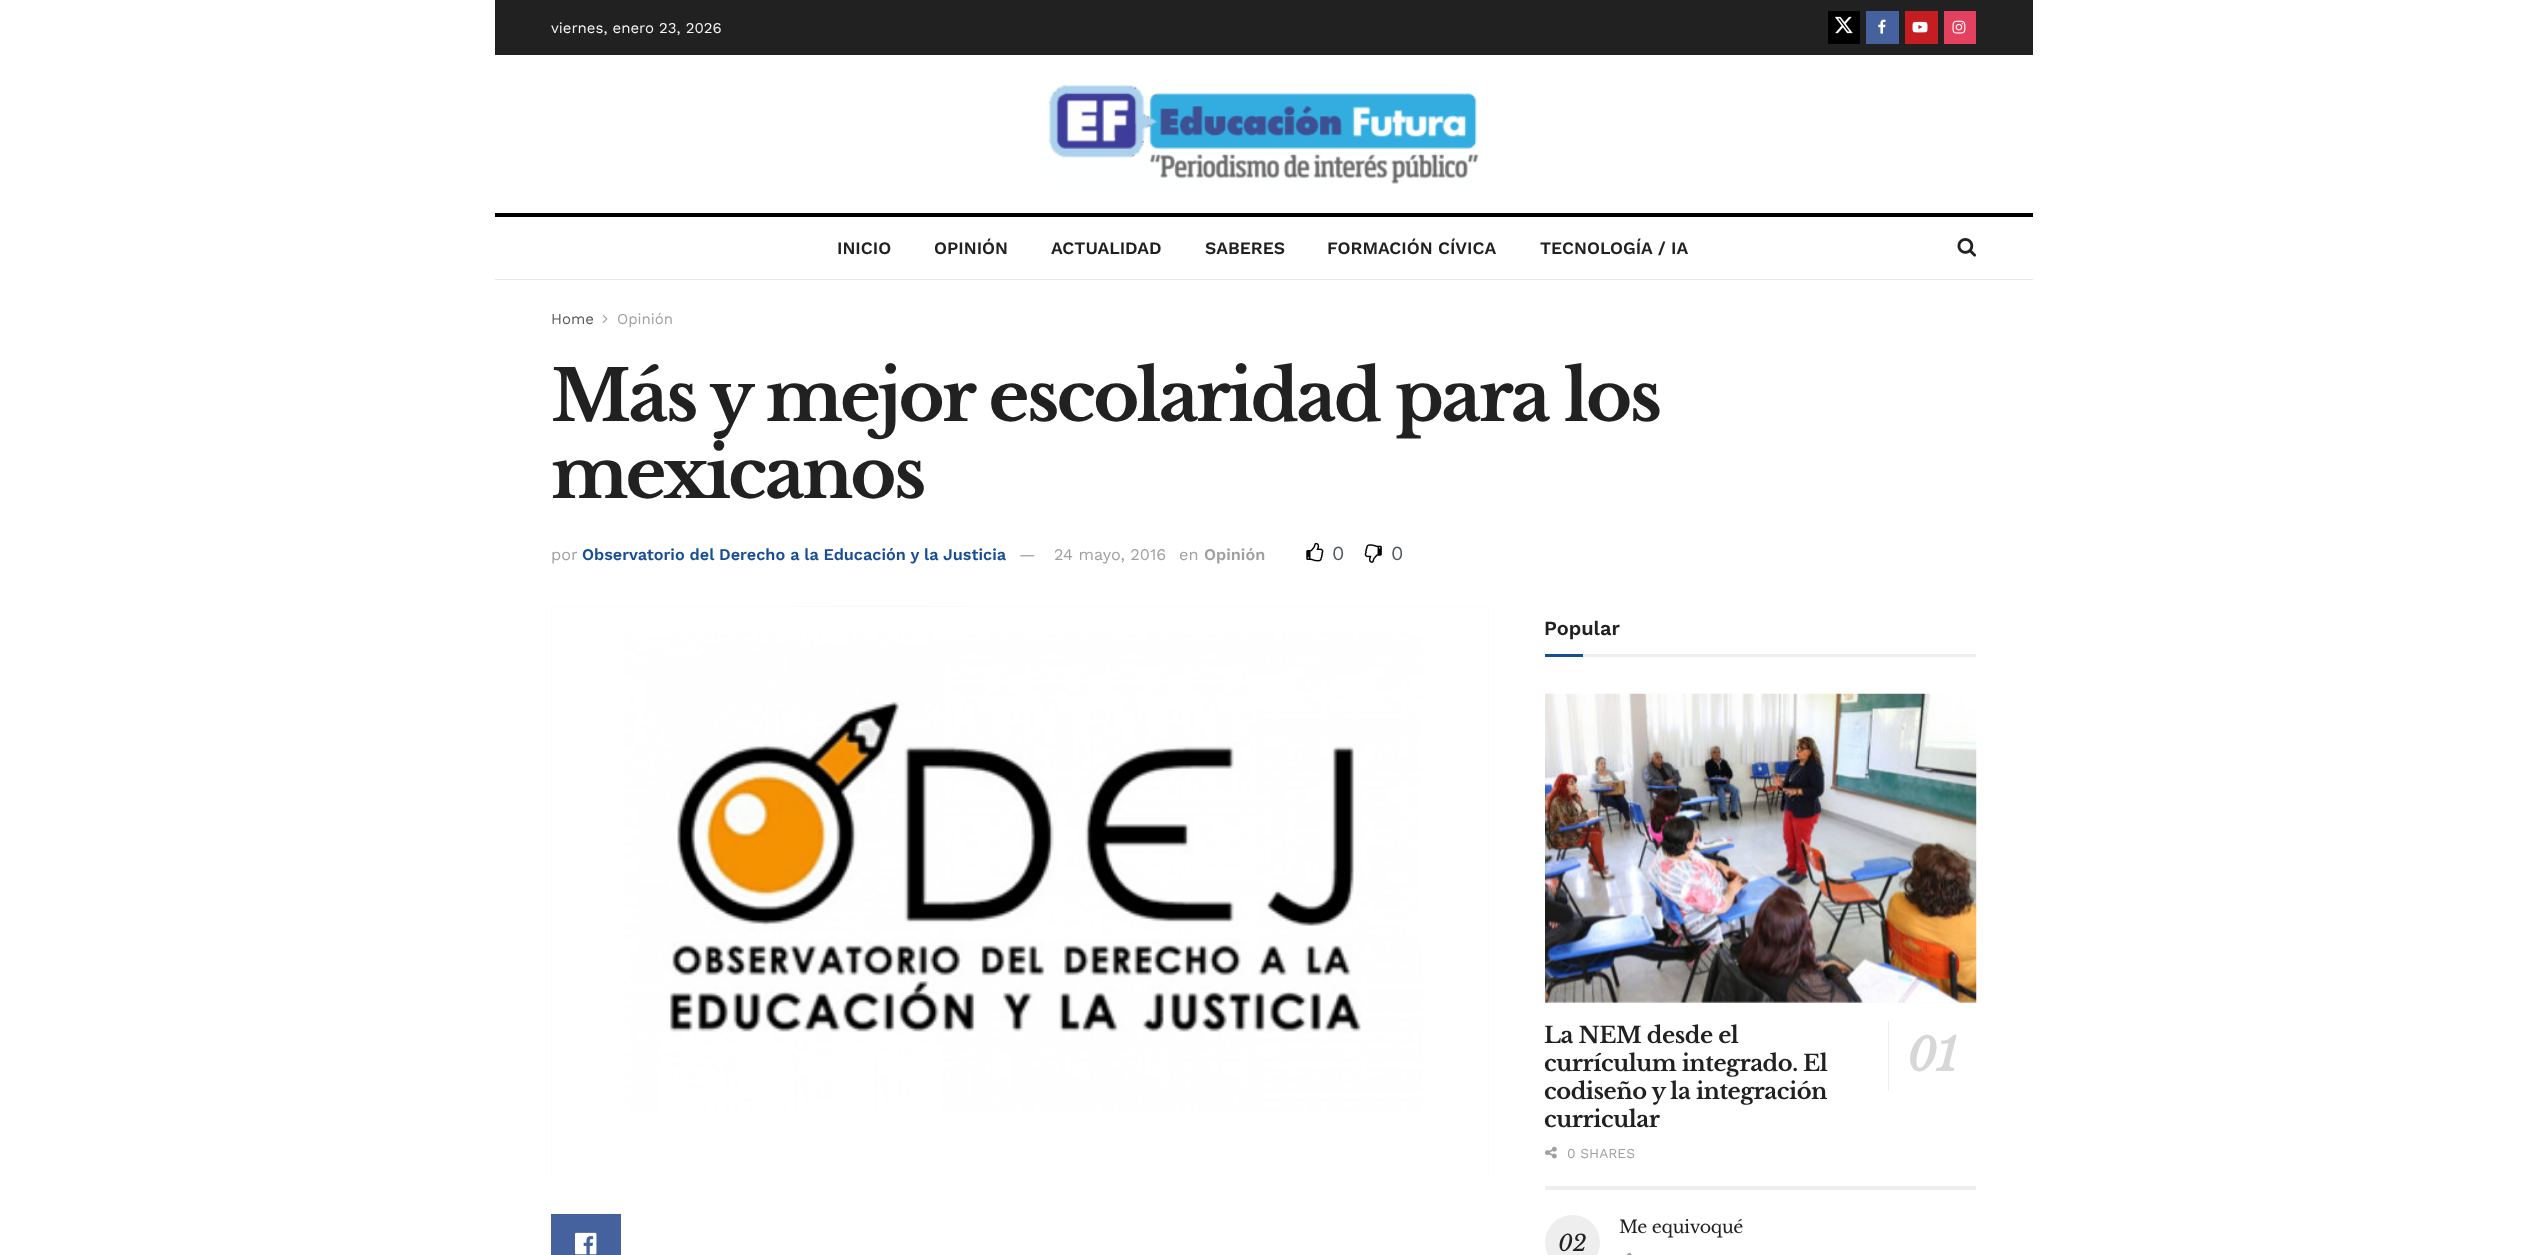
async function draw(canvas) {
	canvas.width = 2526;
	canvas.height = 1255;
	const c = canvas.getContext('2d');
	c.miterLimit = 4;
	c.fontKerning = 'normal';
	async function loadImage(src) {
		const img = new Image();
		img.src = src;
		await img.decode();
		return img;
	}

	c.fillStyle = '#fff';
	c.fillRect(0, 0, 2526, 1255);
	c.fillStyle = '#212121';
	c.fillRect(495, 0, 1538, 55);
	c.font = '15px Work Sans';
	c.fillStyle = '#f5f5f5';
	c.fillText('viernes, enero 23, 2026', 551, 33);
	c.fillStyle = '#000';
	c.fillRect(1828, 11, 32, 33);
	c.drawImage(await loadImage('img1.png'), 1835, 16, 18, 18);
	c.fillStyle = '#45629f';
	c.fillRect(1866, 11, 33, 33);
	c.drawImage(await loadImage('img2.png'), 1878, 19, 8, 15);
	c.fillStyle = '#c61d23';
	c.fillRect(1905, 11, 33, 33);
	c.drawImage(await loadImage('img3.png'), 1912, 21, 16, 12);
	c.fillStyle = '#e4405f';
	c.fillRect(1944, 11, 32, 33);
	c.drawImage(await loadImage('img4.png'), 1952, 20, 14, 14);
	c.drawImage(await loadImage('img5.png'), 1048, 84, 431, 100);
	c.fillStyle = '#000';
	c.fillRect(495, 213, 1538, 4);
	c.fillStyle = '#e8e8e8';
	c.fillRect(495, 279, 1538, 1);
	c.font = '600 17.5px Work Sans';
	c.fillStyle = '#212121';
	for (const [text, x, y] of [
		['INICIO', 837, 254],
		['OPINIÓN', 934, 254],
		['ACTUALIDAD', 1051, 254],
		['SABERES', 1205, 254],
		['FORMACIÓN CÍVICA', 1327, 254],
		['TECNOLOGÍA / IA', 1540, 254],
	]) {
		c.fillText(text, x, y);
	}
	c.drawImage(await loadImage('img6.png'), 1957, 238, 20, 19);
	c.font = '15px Work Sans';
	c.fillStyle = '#53585c';
	c.fillText('Home', 551, 324);
	c.drawImage(await loadImage('img7.png'), 602, 314, 6, 9);
	c.fillStyle = '#a0a0a0';
	c.fillText('Opinión', 617, 324);
	c.letterSpacing = '-2.8px';
	c.font = 'bold 70px Libre Baskerville';
	c.fillStyle = '#212121';
	c.fillText('Más y mejor escolaridad para los', 551, 421);
	c.fillText('mexicanos', 551, 498);
	c.letterSpacing = '0px';
	c.font = '16.25px Work Sans';
	c.fillStyle = '#a0a0a0';
	c.fillText('por', 551, 560);
	c.font = '600 16.25px Work Sans';
	c.fillStyle = '#174e96';
	c.fillText('Observatorio del Derecho a la Educación y la Justicia', 582, 560);
	c.font = '16.25px Work Sans';
	c.fillStyle = '#a0a0a0';
	for (const [text, x, y] of [
		['—', 1019, 560],
		['24 mayo, 2016', 1054, 560],
		['en', 1179, 560],
	]) {
		c.fillText(text, x, y);
	}
	c.font = '600 16.25px Work Sans';
	c.fillText('Opinión', 1204, 560);
	c.drawImage(await loadImage('img8.png'), 1306, 542, 18, 20);
	c.font = '20px Work Sans';
	c.fillStyle = '#53585c';
	c.fillText('0', 1332, 560);
	c.drawImage(await loadImage('img9.png'), 1364, 544, 18, 19);
	c.fillText('0', 1391, 560);
	c.fillStyle = '#f7f7f7';
	c.fillRect(551, 606, 938, 570);
	c.drawImage(await loadImage('img11.png'), 791, 606, 177, 1);
	c.drawImage(await loadImage('img10.png'), 551, 606, 938, 570);
	c.fillStyle = '#45629f';
	c.fillRect(551, 1214, 70, 41);
	c.drawImage(await loadImage('img12.png'), 575, 1232, 22, 23);
	c.fillStyle = '#eee';
	c.fillRect(1583, 654, 393, 3);
	c.font = '600 20px Work Sans';
	c.fillStyle = '#212121';
	c.fillText('Popular', 1544, 635);
	for (const [x, y, w, h, color] of [
		[1545, 654, 38, 3, '#174e96'],
		[1545, 1186, 431, 4, '#eee'],
		[1545, 1001, 431, 2, '#f7f7f7'],
	]) {
		c.fillStyle = color;
		c.fillRect(x, y, w, h);
	}
	c.drawImage(await loadImage('img14.png'), 1653, 693, 86, 310);
	c.drawImage(await loadImage('img13.png'), 1545, 693, 432, 310);
	c.letterSpacing = '-0.45px';
	c.font = 'bold 22.5px Libre Baskerville';
	c.fillStyle = '#212121';
	c.fillText('La NEM desde el', 1544, 1043);
	c.fillStyle = '#eee';
	c.fillRect(1888, 1021, 1, 70);
	c.font = 'italic bold 45px Libre Baskerville';
	c.fillStyle = '#d7d7d7';
	c.fillText('01', 1907, 1071);
	c.font = 'bold 22.5px Libre Baskerville';
	c.fillStyle = '#212121';
	for (const [text, x, y] of [
		['currículum integrado. El', 1544, 1071],
		['codiseño y la integración', 1544, 1099],
		['curricular', 1544, 1127],
	]) {
		c.fillText(text, x, y);
	}
	c.drawImage(await loadImage('img15.png'), 1545, 1146, 12, 13);
	c.letterSpacing = '0px';
	c.font = '13.75px Work Sans';
	c.fillStyle = '#a0a0a0';
	c.fillText('0 SHARES', 1567, 1158);
	c.letterSpacing = '-0.3px';
	c.font = '17.5px Libre Baskerville';
	c.fillStyle = '#212121';
	c.fillText('Me equivoqué', 1619, 1233);
	c.fillStyle = '#eee';
	c.beginPath();
	c.arc(1572.5, 1242.5, 27.5, 0, 2 * Math.PI);
	c.fill();
	c.font = 'italic 22.5px Libre Baskerville';
	c.fillStyle = '#212121';
	c.fillText('02', 1558, 1251);
	c.drawImage(await loadImage('img16.png'), 1627, 1253, 5, 2);
}

draw(document.querySelector('canvas'));
